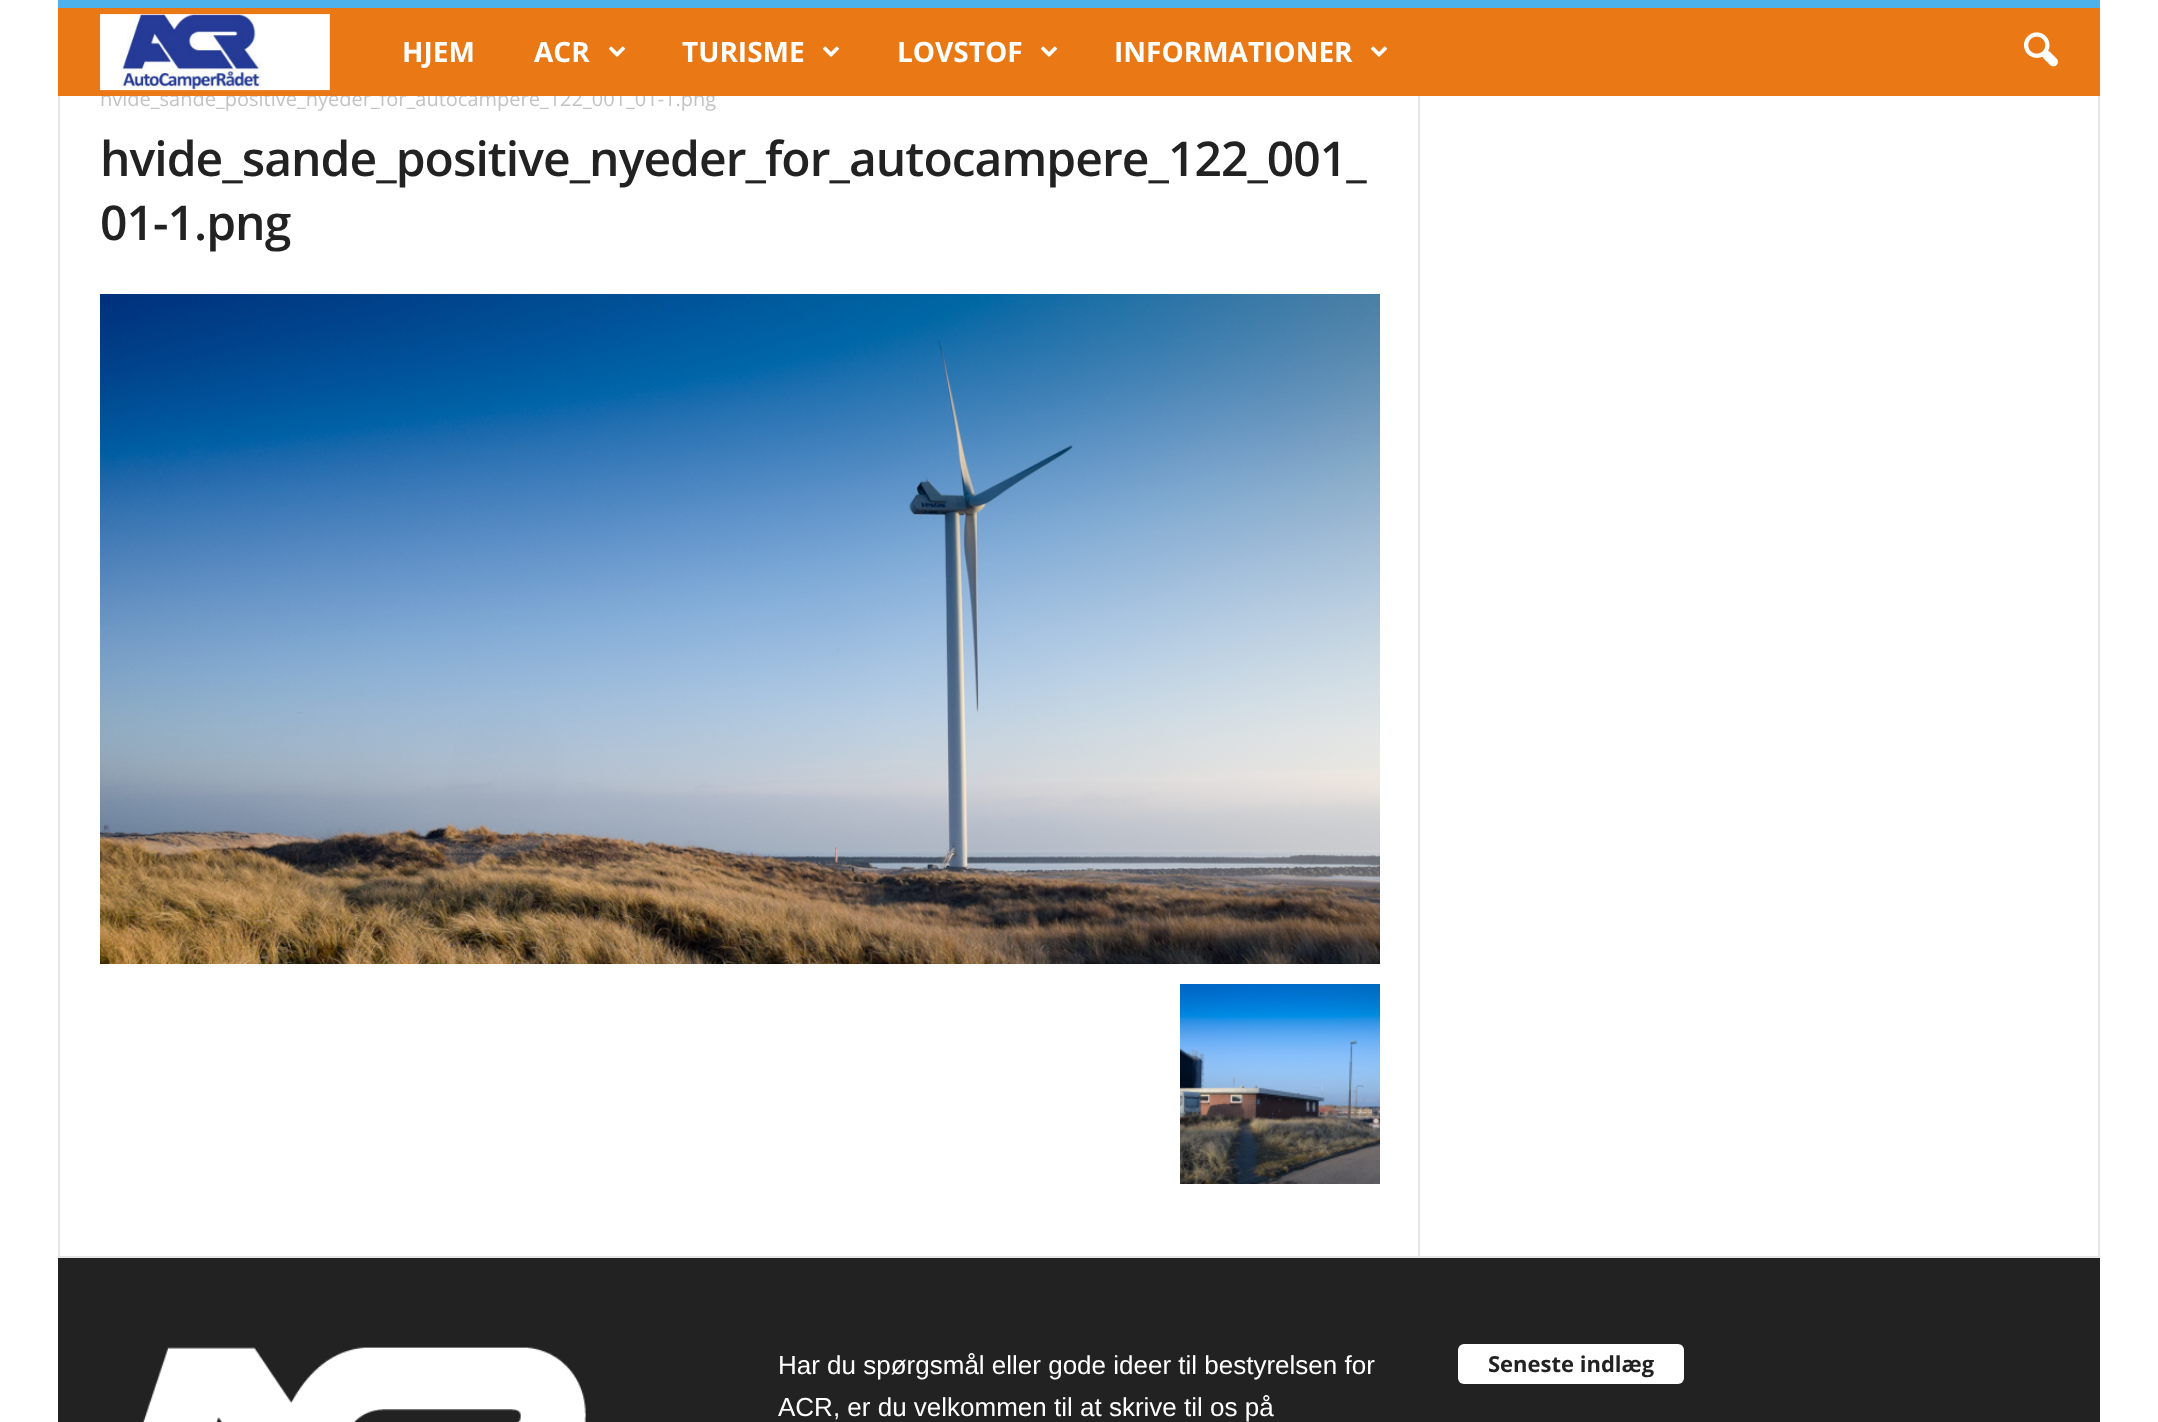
async function draw(canvas) {
	canvas.width = 2158;
	canvas.height = 1422;
	const c = canvas.getContext('2d');
	c.miterLimit = 4;
	c.fontKerning = 'normal';
	async function loadImage(src) {
		const img = new Image();
		img.src = src;
		await img.decode();
		return img;
	}

	c.fillStyle = '#fff';
	c.fillRect(0, 0, 2158, 1422);
	c.font = '20px Open Sans';
	c.fillStyle = '#c3c3c3';
	c.fillText('hvide_sande_positive_nyeder_for_autocampere_122_001_01-1.png', 100, 106);
	c.fillStyle = '#ea7815';
	c.fillRect(58, 8, 2042, 88);
	c.fillStyle = '#4db2ec';
	c.fillRect(58, 0, 2042, 8);
	c.drawImage(await loadImage('img1.png'), 100, 14, 230, 77);
	c.font = 'bold 28px Open Sans';
	c.fillStyle = '#fff';
	c.fillText('HJEM', 402, 62);
	c.fillText('ACR', 534, 62);
	c.drawImage(await loadImage('img2.png'), 608, 46, 18, 11);
	c.fillText('TURISME', 682, 62);
	c.drawImage(await loadImage('img2.png'), 822, 46, 18, 11);
	c.fillText('LOVSTOF', 897, 62);
	c.drawImage(await loadImage('img2.png'), 1040, 46, 18, 11);
	c.fillText('INFORMATIONER', 1114, 62);
	c.drawImage(await loadImage('img2.png'), 1370, 46, 18, 11);
	c.drawImage(await loadImage('img3.png'), 2024, 32, 34, 35);
	c.fillStyle = '#e6e6e6';
	c.fillRect(58, 1256, 2042, 2);
	c.fillRect(58, 96, 2, 1160);
	c.letterSpacing = '-0.95px';
	c.font = '600 48px Open Sans';
	c.fillStyle = '#222';
	c.fillText('hvide_sande_positive_nyeder_for_autocampere_122_001_', 100, 176);
	c.fillText('01-1.png', 100, 240);
	c.drawImage(await loadImage('img4.png'), 100, 294, 1280, 670);
	c.drawImage(await loadImage('img5.png'), 1180, 984, 200, 200);
	for (const [x, y, w, h, color] of [
		[1418, 96, 2, 1160, '#e6e6e6'],
		[2098, 96, 2, 1160, '#e6e6e6'],
		[58, 1258, 2042, 164, '#222'],
	]) {
		c.fillStyle = color;
		c.fillRect(x, y, w, h);
	}
	c.drawImage(await loadImage('img6.png'), 142, 1347, 444, 75);
	c.letterSpacing = '0px';
	c.font = '26px Liberation Sans';
	c.fillStyle = '#fff';
	c.fillText('Har du spørgsmål eller gode ideer til bestyrelsen for', 778, 1374);
	c.fillText('ACR, er du velkommen til at skrive til os på', 778, 1416);
	c.beginPath();
	c.roundRect(1458, 1344, 226, 40, 6);
	c.fill();
	c.font = 'bold 22px Open Sans';
	c.fillStyle = '#222';
	c.fillText('Seneste indlæg', 1488, 1372);
}

draw(document.querySelector('canvas'));
